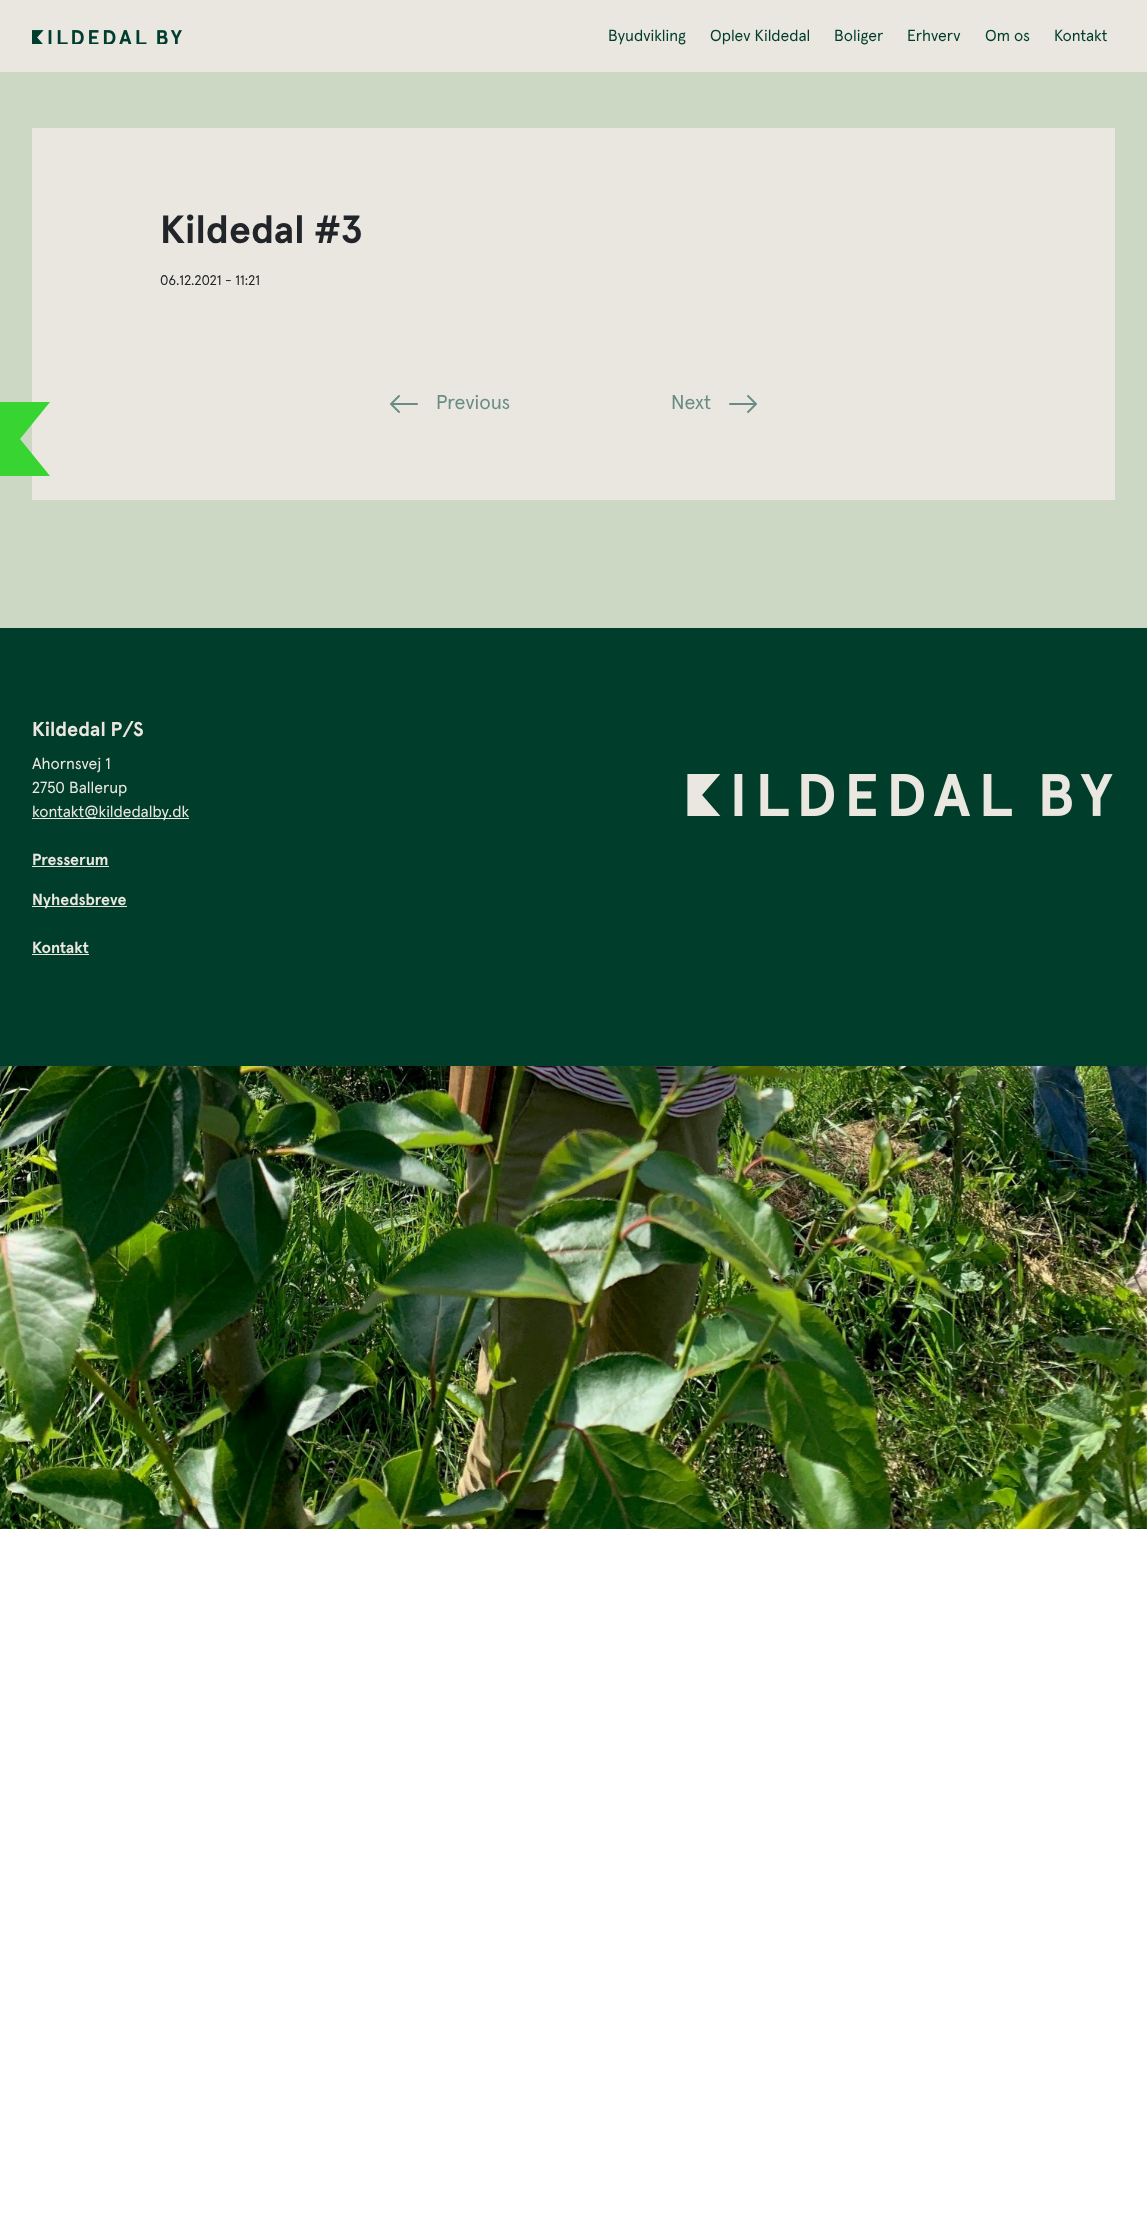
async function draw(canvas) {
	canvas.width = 1147;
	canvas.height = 2233;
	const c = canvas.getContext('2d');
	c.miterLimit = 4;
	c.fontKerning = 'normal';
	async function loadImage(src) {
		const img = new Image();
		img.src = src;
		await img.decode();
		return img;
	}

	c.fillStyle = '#fff';
	c.fillRect(0, 0, 1147, 2233);
	c.drawImage(await loadImage('img1.png'), 0, 1066, 1147, 463);
	c.fillStyle = '#eae7e0';
	c.fillRect(0, 0, 1147, 72);
	c.drawImage(await loadImage('img2.png'), 32, 30, 150, 14);
	c.font = '16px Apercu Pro';
	c.fillStyle = '#003d2b';
	for (const [text, x, y] of [
		['Byudvikling', 608, 41],
		['Oplev Kildedal', 710, 41],
		['Boliger', 834, 41],
		['Erhverv', 907, 41],
		['Om os', 985, 41],
		['Kontakt', 1054, 41],
	]) {
		c.fillText(text, x, y);
	}
	c.fillStyle = '#ccd8c4';
	c.fillRect(0, 72, 1147, 556);
	c.fillStyle = '#eae7e0';
	c.fillRect(32, 128, 1083, 372);
	c.font = 'bold 39.25px Apercu Pro';
	c.fillStyle = '#212529';
	c.fillText('Kildedal #3', 160, 243);
	c.font = '14px Apercu Pro';
	c.fillText('06.12.2021 - 11:21', 160, 285);
	c.drawImage(await loadImage('img3.png'), 390, 395, 28, 18);
	c.font = '20px Apercu Pro';
	c.fillStyle = '#698d85';
	c.fillText('Previous', 436, 409);
	c.fillText('Next', 671, 409);
	c.drawImage(await loadImage('img4.png'), 729, 395, 28, 18);
	c.fillStyle = '#38d431';
	c.beginPath();
	c.moveTo(-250, 402);
	c.lineTo(-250, 476);
	c.lineTo(50, 476);
	c.lineTo(20, 439);
	c.lineTo(50, 402);
	c.closePath();
	c.fill();
	c.fillStyle = '#003d2b';
	c.fillRect(0, 628, 1147, 438);
	c.font = 'bold 20px Apercu Pro';
	c.fillStyle = '#eae7e0';
	c.fillText('Kildedal P/S', 32, 736);
	c.font = '16px Apercu Pro';
	c.fillText('Ahornsvej 1', 32, 769);
	c.fillText('2750 Ballerup', 32, 793);
	c.fillRect(32, 818, 157, 1);
	c.fillText('kontakt@kildedalby.dk', 32, 817);
	c.font = 'bold 16px Apercu Pro';
	c.fillText('Presserum', 32, 865);
	c.fillRect(32, 866, 77, 1);
	c.fillRect(32, 906, 95, 1);
	c.fillText('Nyhedsbreve', 32, 905);
	c.fillText('Kontakt', 32, 953);
	c.fillRect(32, 954, 57, 1);
	c.drawImage(await loadImage('img5.png'), 687, 774, 426, 42);
}

draw(document.querySelector('canvas'));
